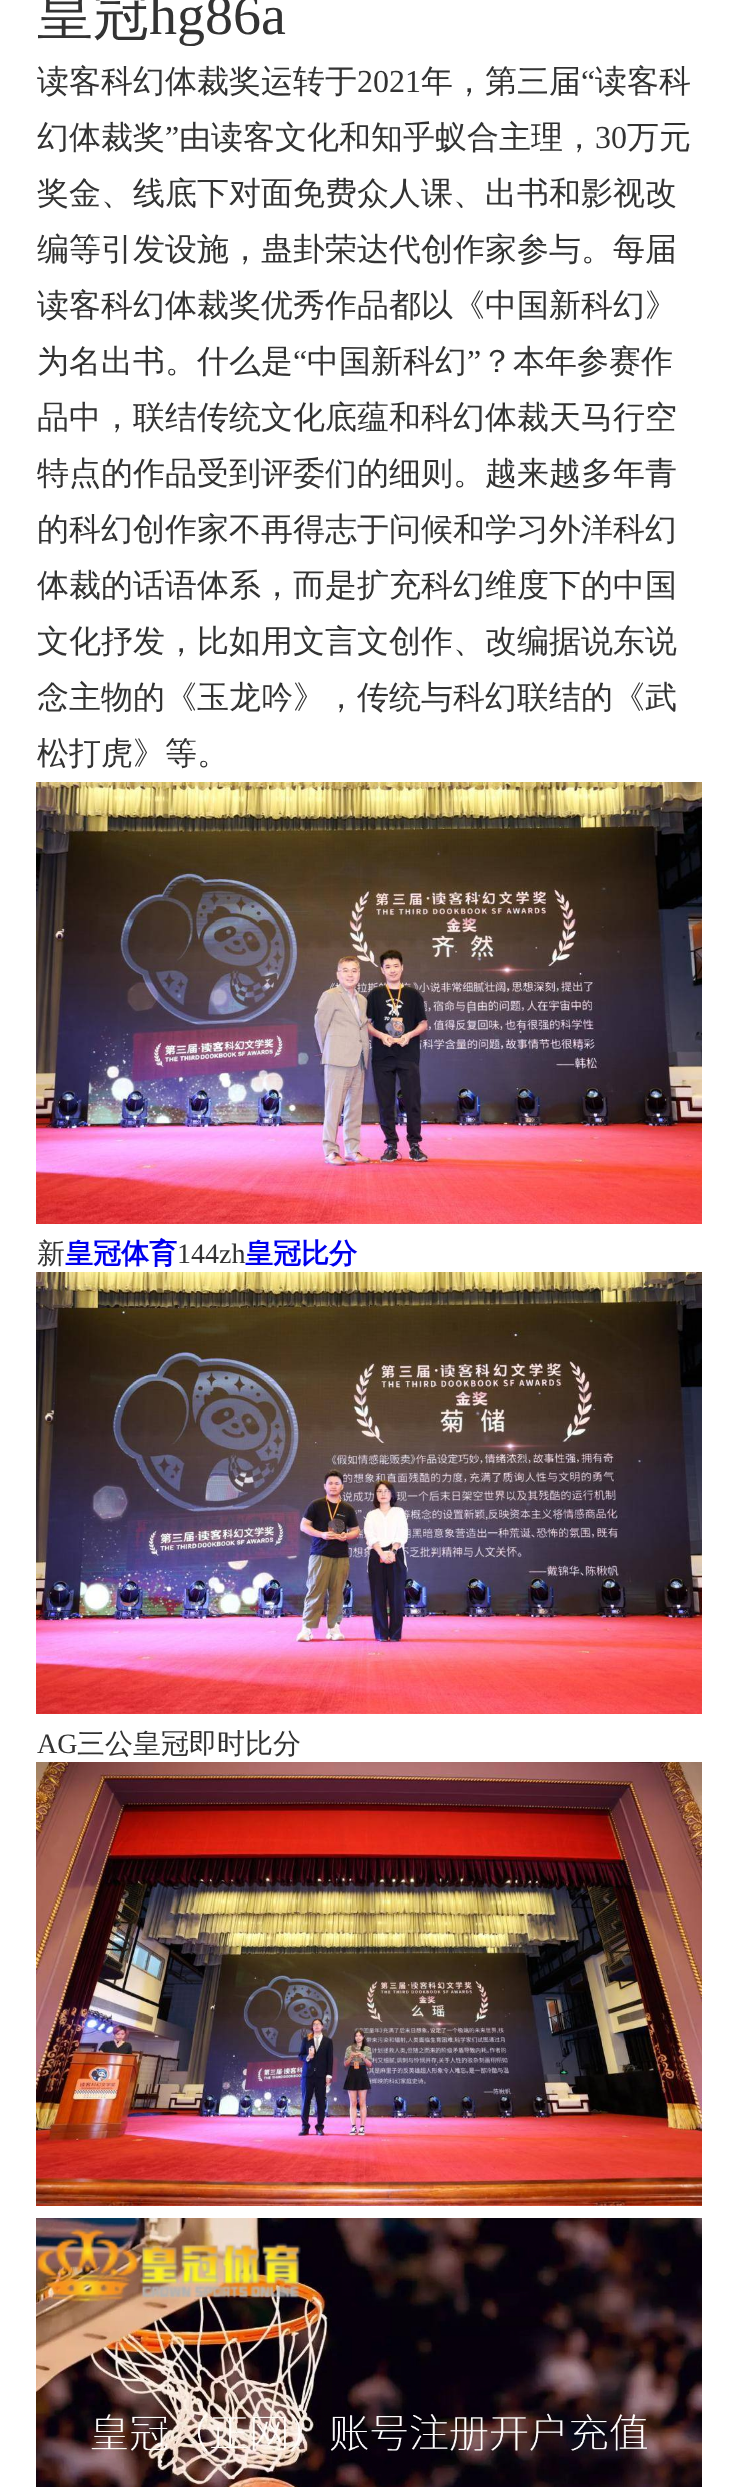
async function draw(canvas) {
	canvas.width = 738;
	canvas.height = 2487;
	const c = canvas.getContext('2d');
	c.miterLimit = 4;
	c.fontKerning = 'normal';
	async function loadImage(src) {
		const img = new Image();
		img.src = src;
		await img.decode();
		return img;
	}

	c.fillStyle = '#fff';
	c.fillRect(0, 0, 738, 2487);
	c.font = '500 56px WenQuanYi Zen Hei';
	c.fillStyle = '#333';
	c.fillText('皇冠', 37, 34);
	c.font = '56px Liberation Serif';
	c.fillText('hg86a', 149, 34);
	c.font = '500 32px WenQuanYi Zen Hei';
	c.fillText('读客科幻体裁奖运转于', 37, 92);
	c.font = '32px Liberation Serif';
	c.fillText('2021', 357, 92);
	c.font = '500 32px WenQuanYi Zen Hei';
	c.fillText('年，第三届', 421, 92);
	c.font = '32px Liberation Serif';
	c.fillText('“', 581, 92);
	c.font = '500 32px WenQuanYi Zen Hei';
	c.fillText('读客科', 595, 92);
	c.fillText('幻体裁奖', 37, 148);
	c.font = '32px Liberation Serif';
	c.fillText('”', 165, 148);
	c.font = '500 32px WenQuanYi Zen Hei';
	c.fillText('由读客文化和知乎蚁合主理，', 179, 148);
	c.font = '32px Liberation Serif';
	c.fillText('30', 595, 148);
	c.font = '500 32px WenQuanYi Zen Hei';
	for (const [text, x, y] of [
		['万元', 627, 148],
		['奖金、线底下对面免费众人课、出书和影视改', 37, 204],
		['编等引发设施，蛊卦荣达代创作家参与。每届', 37, 260],
		['读客科幻体裁奖优秀作品都以《中国新科幻》', 37, 316],
		['为名出书。什么是', 37, 372],
	]) {
		c.fillText(text, x, y);
	}
	c.font = '32px Liberation Serif';
	c.fillText('“', 293, 372);
	c.font = '500 32px WenQuanYi Zen Hei';
	c.fillText('中国新科幻', 307, 372);
	c.font = '32px Liberation Serif';
	c.fillText('”', 467, 372);
	c.font = '500 32px WenQuanYi Zen Hei';
	for (const [text, x, y] of [
		['？本年参赛作', 481, 372],
		['品中，联结传统文化底蕴和科幻体裁天马行空', 37, 428],
		['特点的作品受到评委们的细则。越来越多年青', 37, 484],
		['的科幻创作家不再得志于问候和学习外洋科幻', 37, 540],
		['体裁的话语体系，而是扩充科幻维度下的中国', 37, 596],
		['文化抒发，比如用文言文创作、改编据说东说', 37, 652],
		['念主物的《玉龙吟》，传统与科幻联结的《武', 37, 708],
		['松打虎》等。', 37, 764],
	]) {
		c.fillText(text, x, y);
	}
	c.drawImage(await loadImage('img1.png'), 36, 782, 666, 442);
	c.font = '500 28px WenQuanYi Zen Hei';
	c.fillText('新', 37, 1263);
	c.font = 'bold 28px WenQuanYi Zen Hei';
	c.fillStyle = '#00e';
	c.fillText('皇冠体育', 65, 1263);
	c.font = '28px Liberation Serif';
	c.fillStyle = '#333';
	c.fillText('144zh', 177, 1263);
	c.font = 'bold 28px WenQuanYi Zen Hei';
	c.fillStyle = '#00e';
	c.fillText('皇冠比分', 245, 1263);
	c.drawImage(await loadImage('img2.png'), 36, 1272, 666, 442);
	c.font = '28px Liberation Serif';
	c.fillStyle = '#333';
	c.fillText('AG', 37, 1753);
	c.font = '500 28px WenQuanYi Zen Hei';
	c.fillText('三公皇冠即时比分', 77, 1753);
	c.drawImage(await loadImage('img3.png'), 36, 1762, 666, 444);
	c.drawImage(await loadImage('img4.png'), 36, 2218, 666, 269);
}

draw(document.querySelector('canvas'));
